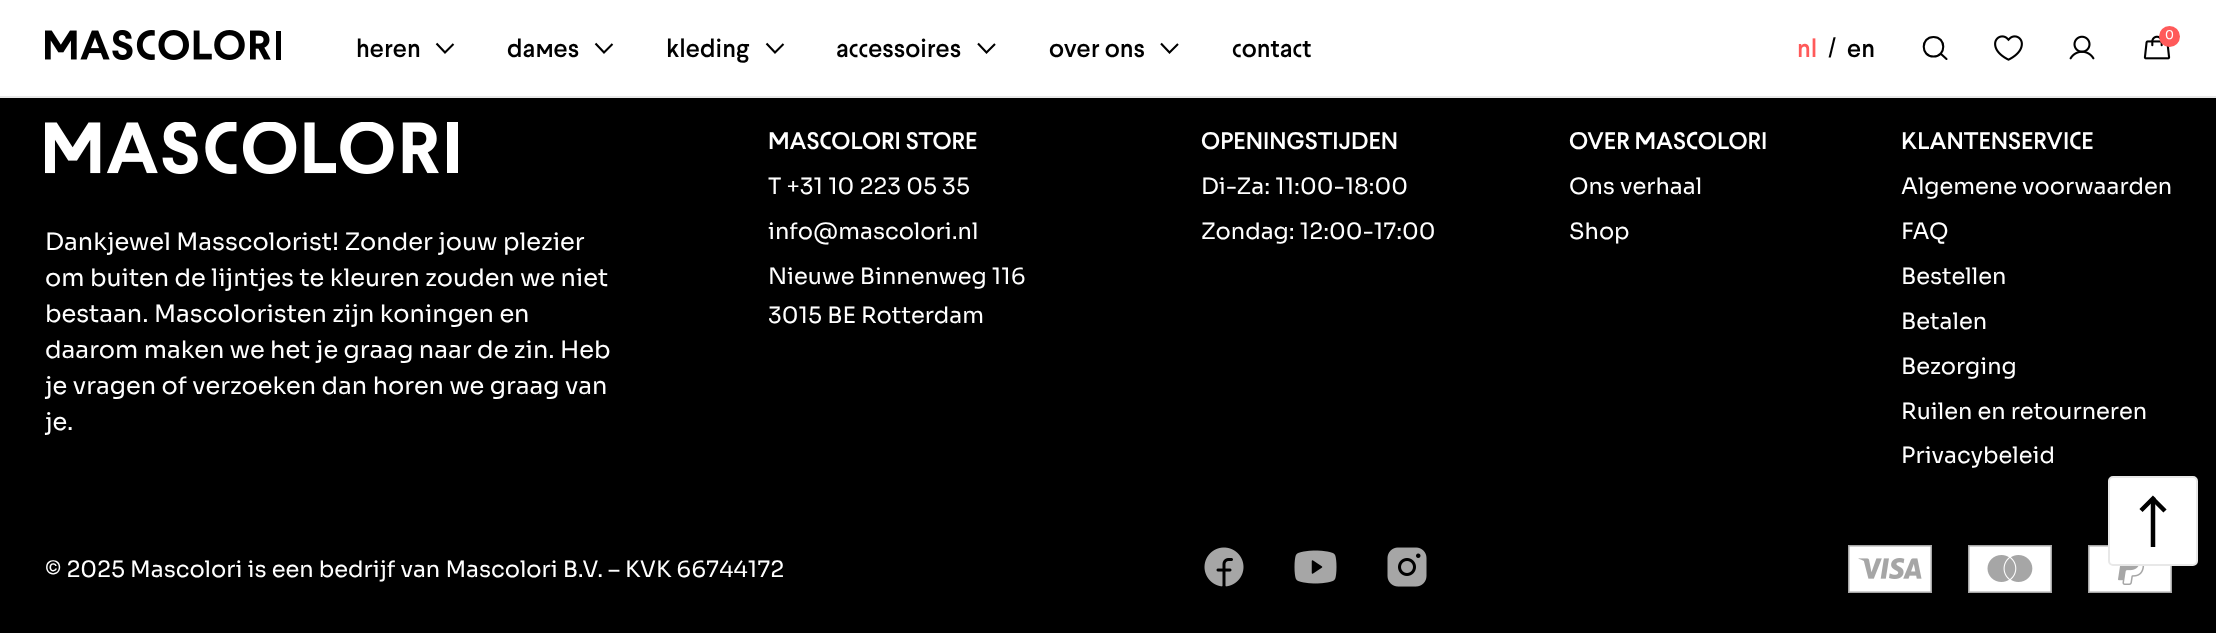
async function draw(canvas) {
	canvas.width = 2216;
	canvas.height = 633;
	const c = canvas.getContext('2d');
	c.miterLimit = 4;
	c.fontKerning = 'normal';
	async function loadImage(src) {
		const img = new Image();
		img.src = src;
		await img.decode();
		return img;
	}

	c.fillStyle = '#000';
	c.fillRect(0, 0, 2216, 633);
	c.fillStyle = '#fff';
	c.fillRect(0, 0, 2216, 96);
	c.fillStyle = '#e8e8e8';
	c.fillRect(0, 96, 2216, 2);
	c.drawImage(await loadImage('img1.png'), 45, 30, 236, 30);
	c.font = '25.5px "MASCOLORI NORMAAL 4"';
	c.fillStyle = '#000';
	c.fillText('heren', 356, 57);
	c.beginPath();
	c.moveTo(453.5, 44);
	c.lineTo(445, 52.5);
	c.lineTo(436.5, 43.5);
	c.strokeStyle = '#000';
	c.lineWidth = 2.1;
	c.stroke();
	c.fillText('dames', 507, 57);
	c.beginPath();
	c.moveTo(612.5, 44);
	c.lineTo(604, 52.5);
	c.lineTo(595.5, 43.5);
	c.stroke();
	c.fillText('kleding', 666, 57);
	c.beginPath();
	c.moveTo(783.5, 44);
	c.lineTo(775, 52.5);
	c.lineTo(766.5, 43.5);
	c.stroke();
	c.fillText('accessoires', 836, 57);
	c.beginPath();
	c.moveTo(995, 44);
	c.lineTo(986.5, 52.5);
	c.lineTo(978, 43.5);
	c.stroke();
	c.fillText('over ons', 1049, 57);
	c.beginPath();
	c.moveTo(1178, 44);
	c.lineTo(1169.5, 52.5);
	c.lineTo(1161, 43.5);
	c.stroke();
	c.fillText('contact', 1232, 57);
	c.fillStyle = '#ff5a5a';
	c.fillText('nl', 1797, 57);
	c.font = '24px Sora';
	c.fillStyle = '#000';
	c.fillText('/', 1828, 56);
	c.font = '25.5px "MASCOLORI NORMAAL 4"';
	c.fillText('en', 1847, 57);
	c.beginPath();
	c.moveTo(1933.5, 56.5);
	c.bezierCurveTo(1946.5, 56.5, 1946.5, 37, 1933.5, 37);
	c.bezierCurveTo(1920.5, 37, 1920.5, 56.5, 1933.5, 56.5);
	c.closePath();
	c.moveTo(1940.5, 53.5);
	c.lineTo(1946.5, 59);
	c.lineCap = 'round';
	c.lineJoin = 'round';
	c.stroke();
	c.drawImage(await loadImage('img2.png'), 1994, 35, 29, 26);
	c.drawImage(await loadImage('img3.png'), 2069, 35, 26, 25);
	c.drawImage(await loadImage('img4.png'), 2143, 35, 28, 25);
	c.fillStyle = '#ff5a5a';
	c.beginPath();
	c.arc(2169.5, 36.5, 10.5, 0, 2 * Math.PI);
	c.fill();
	c.font = '12px Sora';
	c.fillStyle = '#fff';
	c.fillText('0', 2165, 39);
	c.drawImage(await loadImage('img5.png'), 45, 122, 413, 52);
	c.font = '24px Sora';
	for (const [text, x, y] of [
		['Dankjewel Masscolorist! Zonder jouw plezier', 45, 250],
		['om buiten de lijntjes te kleuren zouden we niet', 45, 286],
		['bestaan. Mascoloristen zijn koningen en', 45, 322],
		['daarom maken we het je graag naar de zin. Heb', 45, 358],
		['je vragen of verzoeken dan horen we graag van', 45, 394],
		['je.', 45, 430],
	]) {
		c.fillText(text, x, y);
	}
	c.font = '24px "MASCOLORI NORMAAL 4"';
	c.fillText('MASCOLORI STORE', 768, 149);
	c.font = '22.5px Sora';
	for (const [text, x, y] of [
		['T +31 10 223 05 35', 768, 194],
		['info@mascolori.nl', 768, 239],
		['Nieuwe Binnenweg 116', 768, 284],
		['3015 BE Rotterdam', 768, 323],
	]) {
		c.fillText(text, x, y);
	}
	c.font = '24px "MASCOLORI NORMAAL 4"';
	c.fillText('OPENINGSTIJDEN', 1201, 149);
	c.font = '22.5px Sora';
	c.fillText('Di-Za: 11:00-18:00', 1201, 194);
	c.fillText('Zondag: 12:00-17:00', 1201, 239);
	c.font = '24px "MASCOLORI NORMAAL 4"';
	c.fillText('OVER MASCOLORI', 1569, 149);
	c.font = '22.5px Sora';
	c.fillText('Ons verhaal', 1569, 194);
	c.fillText('Shop', 1569, 239);
	c.font = '24px "MASCOLORI NORMAAL 4"';
	c.fillText('KLANTENSERVICE', 1901, 149);
	c.font = '22.5px Sora';
	for (const [text, x, y] of [
		['Algemene voorwaarden', 1901, 194],
		['FAQ', 1901, 239],
		['Bestellen', 1901, 284],
		['Betalen', 1901, 329],
		['Bezorging', 1901, 374],
		['Ruilen en retourneren', 1901, 419],
		['Privacybeleid', 1901, 463],
	]) {
		c.fillText(text, x, y);
	}
	c.drawImage(await loadImage('img11.png'), 2088, 545, 84, 48);
	c.beginPath();
	c.roundRect(2109, 477, 88, 88, 4);
	c.fill();
	c.strokeStyle = '#e8e8e8';
	c.lineWidth = 2;
	c.lineJoin = 'miter';
	c.stroke();
	c.save();
	c.beginPath();
	c.moveTo(2138, 547);
	c.lineTo(2138, 494);
	c.lineTo(2168, 494);
	c.lineTo(2168, 547);
	c.closePath();
	c.clip();
	c.beginPath();
	c.moveTo(2153, 547);
	c.lineTo(2153, 499);
	c.strokeStyle = '#000';
	c.lineWidth = 4.5;
	c.lineCap = 'butt';
	c.stroke();
	c.restore();
	c.beginPath();
	c.moveTo(2141, 510.5);
	c.lineTo(2154.5, 497);
	c.moveTo(2165, 511);
	c.lineTo(2151.5, 497.5);
	c.strokeStyle = '#000';
	c.lineWidth = 4.5;
	c.lineCap = 'butt';
	c.stroke();
	c.fillText('© 2025 Mascolori is een bedrijf van Mascolori B.V. – KVK 66744172', 45, 577);
	c.drawImage(await loadImage('img6.png'), 1204, 547, 40, 40);
	c.drawImage(await loadImage('img7.png'), 1294, 550, 43, 34);
	c.drawImage(await loadImage('img8.png'), 1387, 547, 40, 40);
	c.drawImage(await loadImage('img9.png'), 1848, 545, 84, 48);
	c.drawImage(await loadImage('img10.png'), 1968, 545, 84, 48);
}

draw(document.querySelector('canvas'));
